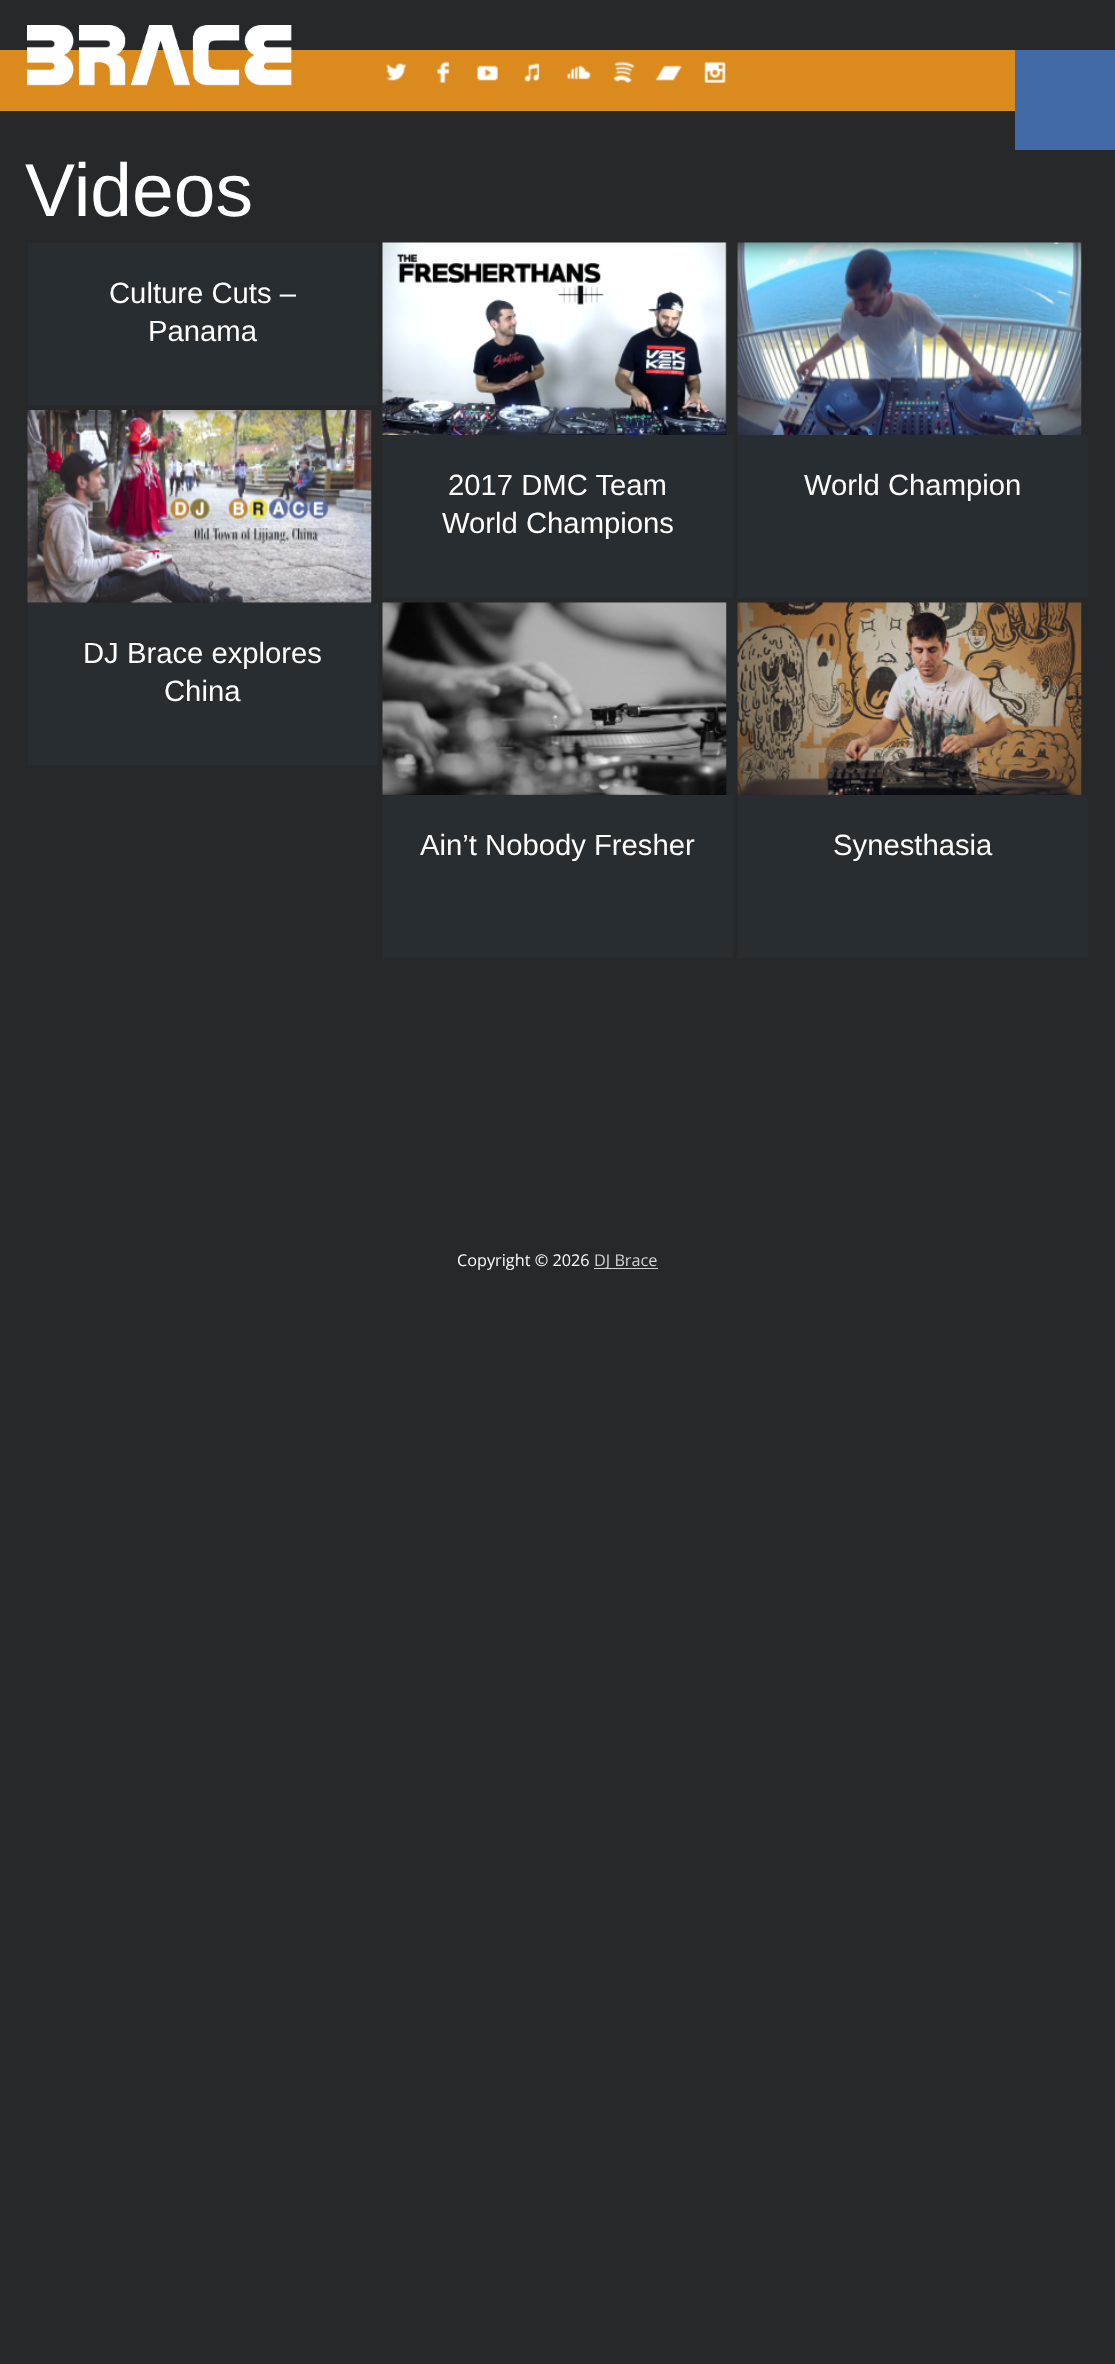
async function draw(canvas) {
	canvas.width = 1115;
	canvas.height = 2364;
	const c = canvas.getContext('2d');
	c.miterLimit = 4;
	c.fontKerning = 'normal';
	async function loadImage(src) {
		const img = new Image();
		img.src = src;
		await img.decode();
		return img;
	}

	c.fillStyle = '#26282a';
	c.fillRect(0, 0, 1115, 2364);
	c.fillStyle = '#db8a1e';
	c.fillRect(0, 50, 1015, 61);
	c.drawImage(await loadImage('img1.png'), 27, 25, 265, 61);
	c.drawImage(await loadImage('img2.png'), 385, 63, 22, 18);
	c.drawImage(await loadImage('img3.png'), 436, 61, 14, 22);
	c.drawImage(await loadImage('img4.png'), 476, 65, 22, 16);
	c.drawImage(await loadImage('img5.png'), 524, 63, 16, 19);
	c.drawImage(await loadImage('img6.png'), 566, 65, 25, 15);
	c.drawImage(await loadImage('img7.png'), 613, 61, 22, 22);
	c.drawImage(await loadImage('img8.png'), 655, 65, 27, 16);
	c.drawImage(await loadImage('img9.png'), 704, 61, 22, 22);
	c.fillStyle = '#426aa7';
	c.fillRect(1015, 50, 100, 100);
	c.font = '75px Liberation Sans';
	c.fillStyle = '#fff';
	c.fillText('Videos', 25, 216);
	c.fillStyle = '#282d32';
	c.fillRect(28, 243, 350, 162);
	c.font = '29.25px Liberation Sans';
	c.fillStyle = '#fff';
	c.fillText('Culture Cuts –', 109, 303);
	c.fillText('Panama', 148, 341);
	c.drawImage(await loadImage('img10.png'), 382, 242, 345, 193);
	c.fillStyle = '#282d32';
	c.fillRect(383, 435, 350, 163);
	c.fillStyle = '#fff';
	c.fillText('2017 DMC Team', 448, 495);
	c.fillText('World Champions', 442, 533);
	c.drawImage(await loadImage('img11.png'), 737, 242, 345, 193);
	c.fillStyle = '#282d32';
	c.fillRect(738, 435, 350, 163);
	c.fillStyle = '#fff';
	c.fillText('World Champion', 804, 495);
	c.drawImage(await loadImage('img12.png'), 27, 410, 345, 193);
	c.fillStyle = '#282d32';
	c.fillRect(28, 603, 350, 162);
	c.fillStyle = '#fff';
	c.fillText('DJ Brace explores', 83, 663);
	c.fillText('China', 164, 701);
	c.drawImage(await loadImage('img13.png'), 382, 602, 345, 193);
	c.fillStyle = '#282d32';
	c.fillRect(383, 795, 350, 163);
	c.fillStyle = '#fff';
	c.fillText('Ain’t Nobody Fresher', 420, 855);
	c.drawImage(await loadImage('img14.png'), 737, 602, 345, 193);
	c.fillStyle = '#282d32';
	c.fillRect(738, 795, 350, 163);
	c.fillStyle = '#fff';
	c.fillText('Synesthasia', 833, 855);
	c.font = '16.25px Open Sans';
	c.fillText('Copyright © 2026', 457, 1266);
	c.fillStyle = '#d3d3d3';
	c.fillRect(594, 1268, 64, 1);
	c.fillText('DJ Brace', 594, 1266);
}

draw(document.querySelector('canvas'));
